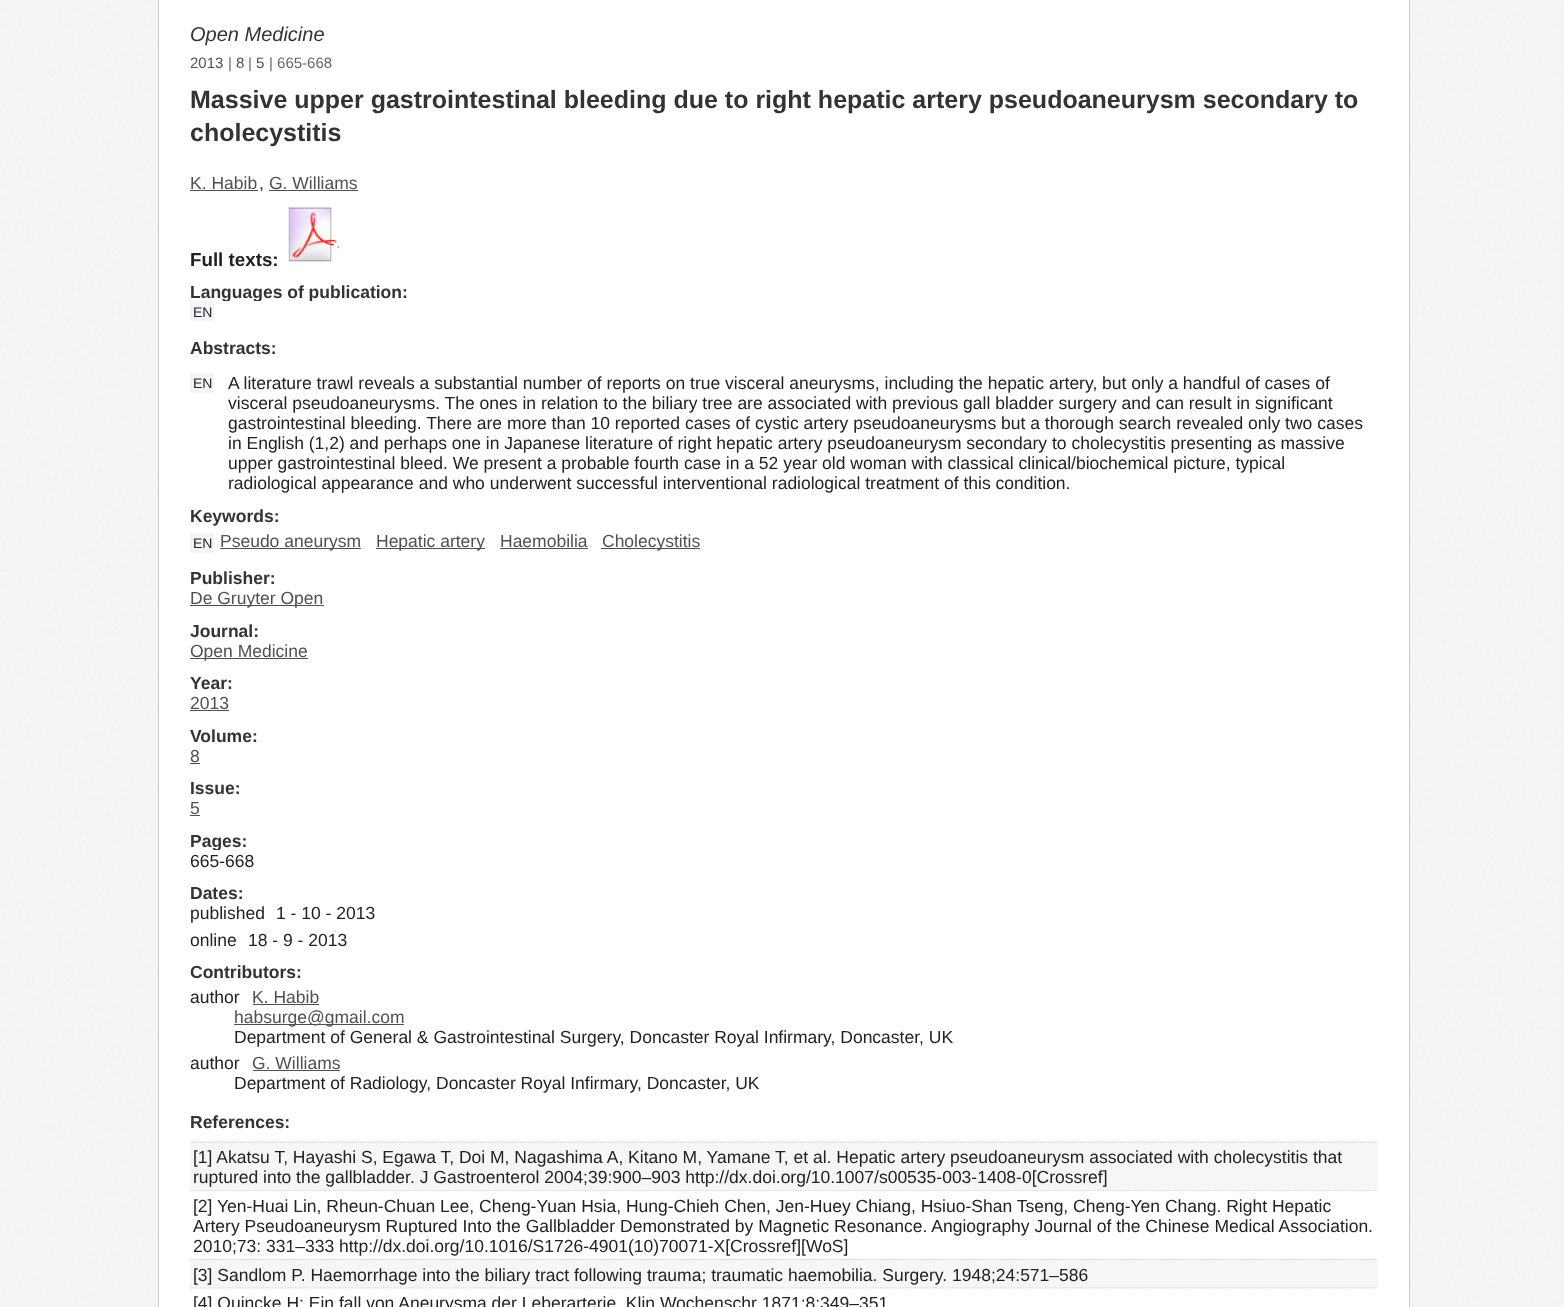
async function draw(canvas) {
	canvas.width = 1564;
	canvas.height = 1307;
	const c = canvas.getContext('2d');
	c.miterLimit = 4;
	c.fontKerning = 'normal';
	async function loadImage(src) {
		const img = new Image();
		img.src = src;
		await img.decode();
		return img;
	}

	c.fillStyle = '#fff';
	c.fillRect(0, 0, 1564, 1307);
	c.drawImage(await loadImage('img1.png'), 0, 0, 1564, 1307);
	c.fillRect(159, 0, 1250, 1307);
	c.fillStyle = '#ccc';
	c.beginPath();
	c.moveTo(158, -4);
	c.lineTo(1410, -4);
	c.lineTo(1410, 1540);
	c.bezierCurveTo(1410, 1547, 1404, 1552, 1398, 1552);
	c.lineTo(170, 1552);
	c.bezierCurveTo(163, 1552, 158, 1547, 158, 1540);
	c.closePath();
	c.moveTo(159, -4);
	c.lineTo(1409, -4);
	c.lineTo(1409, 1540);
	c.bezierCurveTo(1409, 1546, 1404, 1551, 1398, 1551);
	c.lineTo(170, 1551);
	c.bezierCurveTo(164, 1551, 159, 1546, 159, 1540);
	c.closePath();
	c.fill('evenodd');
	c.font = 'italic 20px Liberation Sans';
	c.fillStyle = '#333';
	c.fillText('Open Medicine', 190, 41);
	c.font = '15px Liberation Sans';
	c.fillStyle = '#515050';
	c.fillText('2013', 190, 68);
	c.fillStyle = '#666';
	c.fillText('|', 228, 68);
	c.fillStyle = '#515050';
	c.fillText('8', 236, 68);
	c.fillStyle = '#666';
	c.fillText('|', 248, 68);
	c.fillStyle = '#515050';
	c.fillText('5', 256, 68);
	c.fillStyle = '#666';
	c.fillText('| 665-668', 269, 68);
	c.font = 'bold 25px Liberation Sans';
	c.fillStyle = '#333';
	c.fillText('Massive upper gastrointestinal bleeding due to right hepatic artery pseudoaneurysm secondary to', 190, 108);
	c.fillText('cholecystitis', 190, 141);
	c.font = '17.5px Liberation Sans';
	c.fillStyle = '#515050';
	c.fillText('K. Habib', 190, 189);
	c.fillRect(190, 190, 68, 1);
	c.fillStyle = '#222';
	c.fillText(',', 259, 189);
	c.fillStyle = '#515050';
	c.fillText('G. Williams', 269, 189);
	c.fillRect(269, 190, 89, 1);
	c.font = 'bold 18.75px Liberation Sans';
	c.fillStyle = '#222';
	c.fillText('Full texts:', 190, 266);
	c.drawImage(await loadImage('img2.png'), 288, 207, 51, 55);
	c.font = 'bold 17.5px Liberation Sans';
	c.fillStyle = '#333';
	c.fillText('Languages of publication:', 190, 298);
	c.fillStyle = '#fff';
	c.fillRect(223, 301, 90, 1);
	c.fillStyle = '#f3f4f7';
	c.beginPath();
	c.roundRect(190, 301, 24, 20, 2.5);
	c.fill();
	c.font = '14px Liberation Sans';
	c.fillStyle = '#222';
	c.fillText('EN', 193, 317);
	c.font = 'bold 17.5px Liberation Sans';
	c.fillStyle = '#333';
	c.fillText('Abstracts:', 190, 354);
	c.fillStyle = '#f3f4f7';
	c.beginPath();
	c.roundRect(190, 373, 24, 20, 2.5);
	c.fill();
	c.font = '14px Liberation Sans';
	c.fillStyle = '#222';
	c.fillText('EN', 193, 388);
	c.font = '17.5px Liberation Sans';
	for (const [text, x, y] of [
		['A literature trawl reveals a substantial number of reports on true visceral aneurysms, including the hepatic artery, but only a handful of cases of', 228, 389],
		['visceral pseudoaneurysms. The ones in relation to the biliary tree are associated with previous gall bladder surgery and can result in significant', 228, 409],
		['gastrointestinal bleeding. There are more than 10 reported cases of cystic artery pseudoaneurysms but a thorough search revealed only two cases', 228, 429],
		['in English (1,2) and perhaps one in Japanese literature of right hepatic artery pseudoaneurysm secondary to cholecystitis presenting as massive', 228, 449],
		['upper gastrointestinal bleed. We present a probable fourth case in a 52 year old woman with classical clinical/biochemical picture, typical', 228, 469],
		['radiological appearance and who underwent successful interventional radiological treatment of this condition.', 228, 489],
	]) {
		c.fillText(text, x, y);
	}
	c.font = 'bold 17.5px Liberation Sans';
	c.fillStyle = '#333';
	c.fillText('Keywords:', 190, 522);
	c.fillStyle = '#f3f4f7';
	c.beginPath();
	c.roundRect(190, 533, 24, 20, 2.5);
	c.fill();
	c.font = '14px Liberation Sans';
	c.fillStyle = '#222';
	c.fillText('EN', 193, 548);
	c.fillStyle = '#515050';
	c.fillRect(220, 548, 141, 1);
	c.font = '17.5px Liberation Sans';
	c.fillText('Pseudo aneurysm', 220, 547);
	c.fillRect(376, 548, 109, 1);
	c.fillText('Hepatic artery', 376, 547);
	c.fillText('Haemobilia', 500, 547);
	c.fillRect(500, 548, 88, 1);
	c.fillRect(601, 548, 99, 1);
	c.fillText('Cholecystitis', 602, 547);
	c.font = 'bold 17.5px Liberation Sans';
	c.fillStyle = '#333';
	c.fillText('Publisher:', 190, 584);
	c.fillStyle = '#515050';
	c.fillRect(190, 605, 134, 1);
	c.font = '17.5px Liberation Sans';
	c.fillText('De Gruyter Open', 190, 604);
	c.font = 'bold 17.5px Liberation Sans';
	c.fillStyle = '#333';
	c.fillText('Journal:', 190, 637);
	c.fillStyle = '#515050';
	c.fillRect(190, 658, 118, 1);
	c.font = '17.5px Liberation Sans';
	c.fillText('Open Medicine', 190, 657);
	c.font = 'bold 17.5px Liberation Sans';
	c.fillStyle = '#333';
	c.fillText('Year:', 190, 689);
	c.font = '17.5px Liberation Sans';
	c.fillStyle = '#515050';
	c.fillText('2013', 190, 709);
	c.fillRect(190, 710, 39, 1);
	c.font = 'bold 17.5px Liberation Sans';
	c.fillStyle = '#333';
	c.fillText('Volume:', 190, 742);
	c.font = '17.5px Liberation Sans';
	c.fillStyle = '#515050';
	c.fillText('8', 190, 762);
	c.fillRect(190, 763, 10, 1);
	c.font = 'bold 17.5px Liberation Sans';
	c.fillStyle = '#333';
	c.fillText('Issue:', 190, 794);
	c.font = '17.5px Liberation Sans';
	c.fillStyle = '#515050';
	c.fillText('5', 190, 814);
	c.fillRect(190, 815, 10, 1);
	c.font = 'bold 17.5px Liberation Sans';
	c.fillStyle = '#333';
	c.fillText('Pages:', 190, 847);
	c.fillStyle = '#fff';
	c.fillRect(213, 850, 7, 1);
	c.font = '17.5px Liberation Sans';
	c.fillStyle = '#222';
	c.fillText('665-668', 190, 867);
	c.font = 'bold 17.5px Liberation Sans';
	c.fillStyle = '#333';
	c.fillText('Dates:', 190, 899);
	c.font = '17.5px Liberation Sans';
	c.fillStyle = '#222';
	for (const [text, x, y] of [
		['published', 190, 919],
		['1 - 10 - 2013', 276, 919],
		['online', 190, 946],
		['18 - 9 - 2013', 248, 946],
	]) {
		c.fillText(text, x, y);
	}
	c.font = 'bold 17.5px Liberation Sans';
	c.fillStyle = '#333';
	c.fillText('Contributors:', 190, 978);
	c.font = '17.5px Liberation Sans';
	c.fillStyle = '#222';
	c.fillText('author', 190, 1003);
	c.fillStyle = '#515050';
	c.fillText('K. Habib', 252, 1003);
	c.fillRect(253, 1004, 66, 1);
	c.fillRect(234, 1024, 170, 1);
	c.fillText('habsurge@gmail.com', 234, 1023);
	c.fillStyle = '#222';
	c.fillText('Department of General & Gastrointestinal Surgery, Doncaster Royal Infirmary, Doncaster, UK', 234, 1043);
	c.fillText('author', 190, 1069);
	c.fillStyle = '#515050';
	c.fillText('G. Williams', 252, 1069);
	c.fillRect(253, 1070, 87, 1);
	c.fillStyle = '#222';
	c.fillText('Department of Radiology, Doncaster Royal Infirmary, Doncaster, UK', 234, 1089);
	c.font = 'bold 17.5px Liberation Sans';
	c.fillStyle = '#333';
	c.fillText('References:', 190, 1128);
	c.fillStyle = '#f6f6f6';
	c.fillRect(190, 1141, 1188, 49);
	c.beginPath();
	c.moveTo(190, 1142);
	c.lineTo(1377.5, 1142);
	c.strokeStyle = '#ccc';
	c.lineWidth = 1.2;
	c.setLineDash([1.25, 1.25]);
	c.stroke();
	c.font = '17.5px Liberation Sans';
	c.fillStyle = '#222';
	c.fillText('[1] Akatsu T, Hayashi S, Egawa T, Doi M, Nagashima A, Kitano M, Yamane T, et al. Hepatic artery pseudoaneurysm associated with cholecystitis that', 193, 1163);
	c.fillText('ruptured into the gallbladder. J Gastroenterol 2004;39:900–903 http://dx.doi.org/10.1007/s00535-003-1408-0[Crossref]', 193, 1183);
	c.beginPath();
	c.moveTo(190, 1190.5);
	c.lineTo(1377.5, 1190.5);
	c.stroke();
	for (const [text, x, y] of [
		['[2] Yen-Huai Lin, Rheun-Chuan Lee, Cheng-Yuan Hsia, Hung-Chieh Chen, Jen-Huey Chiang, Hsiuo-Shan Tseng, Cheng-Yen Chang. Right Hepatic', 193, 1212],
		['Artery Pseudoaneurysm Ruptured Into the Gallbladder Demonstrated by Magnetic Resonance. Angiography Journal of the Chinese Medical Association.', 193, 1232],
		['2010;73: 331–333 http://dx.doi.org/10.1016/S1726-4901(10)70071-X[Crossref][WoS]', 193, 1252],
	]) {
		c.fillText(text, x, y);
	}
	c.fillStyle = '#f6f6f6';
	c.fillRect(190, 1259, 1188, 29);
	c.beginPath();
	c.moveTo(190, 1259.5);
	c.lineTo(1377.5, 1259.5);
	c.stroke();
	c.fillStyle = '#222';
	c.fillText('[3] Sandlom P. Haemorrhage into the biliary tract following trauma; traumatic haemobilia. Surgery. 1948;24:571–586', 193, 1281);
	c.beginPath();
	c.moveTo(190, 1288);
	c.lineTo(1377.5, 1288);
	c.stroke();
	c.fillText('[4] Quincke H: Ein fall von Aneurysma der Leberarterie. Klin Wochenschr 1871;8:349–351', 193, 1309);
}

draw(document.querySelector('canvas'));
